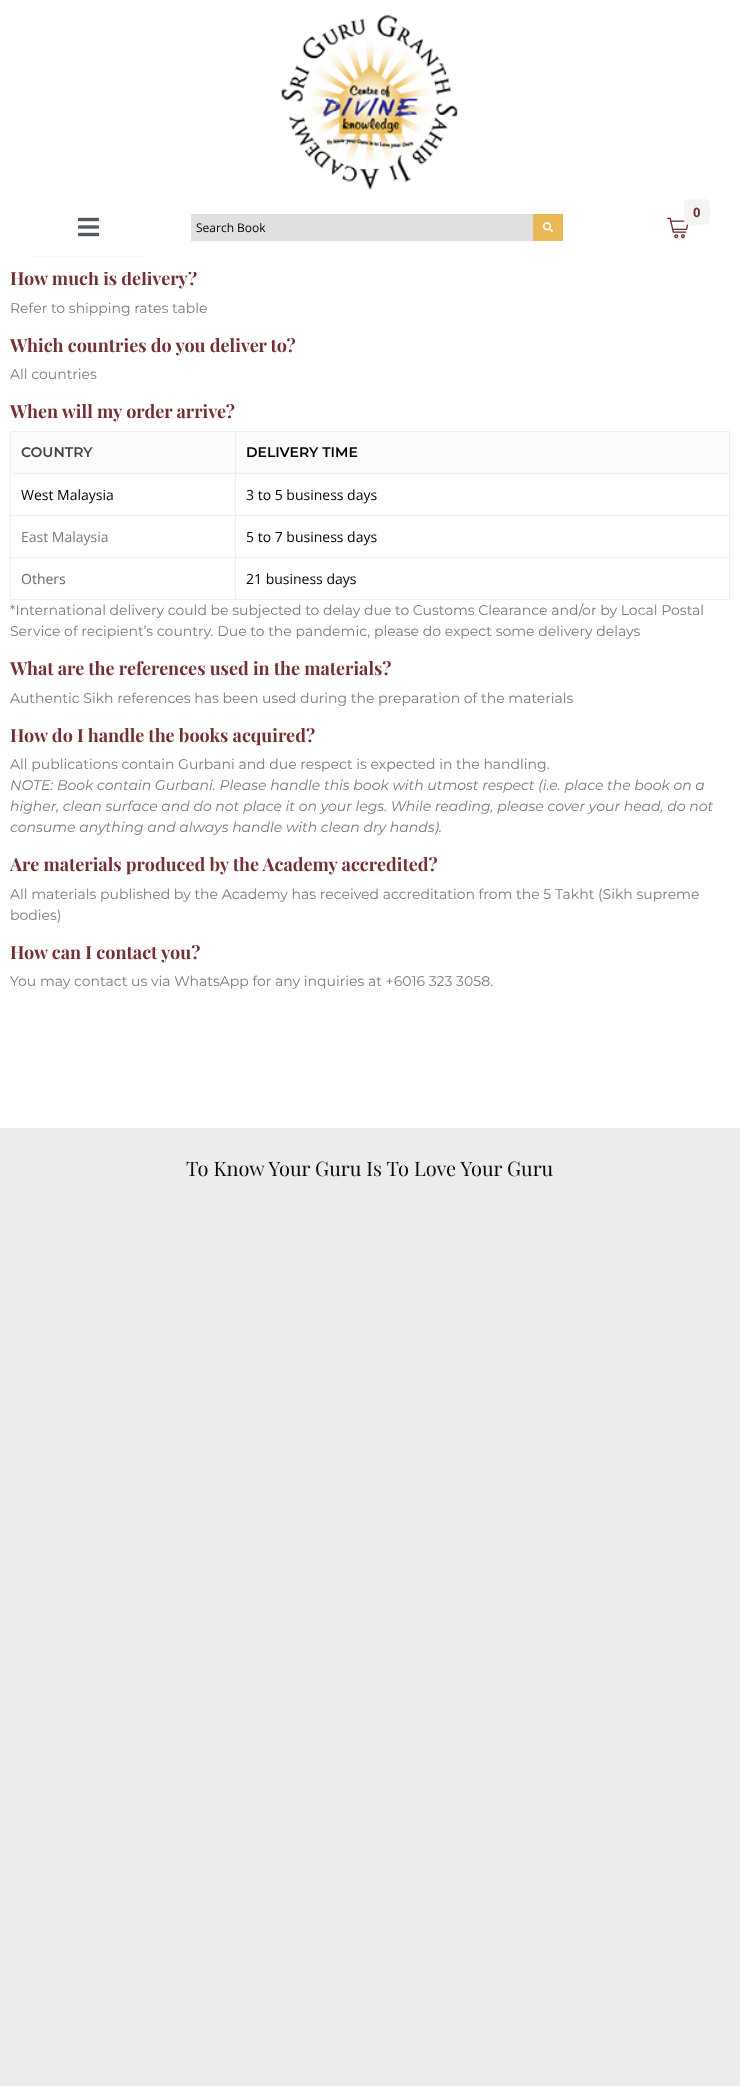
async function draw(canvas) {
	canvas.width = 740;
	canvas.height = 2086;
	const c = canvas.getContext('2d');
	c.miterLimit = 4;
	c.fontKerning = 'normal';
	async function loadImage(src) {
		const img = new Image();
		img.src = src;
		await img.decode();
		return img;
	}

	c.fillStyle = '#fff';
	c.fillRect(0, 0, 740, 2086);
	c.font = 'bold 18px Playfair Display';
	c.fillStyle = '#742f35';
	c.fillText('How much is delivery?', 10, 285);
	c.fillStyle = '#fff';
	c.fillRect(88, 270, 108, 2);
	c.drawImage(await loadImage('img1.png'), 281, 14, 177, 176);
	c.drawImage(await loadImage('img2.png'), 667, 217, 22, 22);
	c.fillStyle = '#f4f4f4';
	c.beginPath();
	c.roundRect(684, 199, 26, 26, 5);
	c.fill();
	c.font = 'bold 13px Open Sans';
	c.fillStyle = '#742f35';
	c.fillText('0', 693, 217);
	c.drawImage(await loadImage('img3.png'), 78, 217, 21, 20);
	c.fillStyle = '#f7f7f7';
	c.fillRect(30, 256, 116, 1);
	c.fillStyle = '#e1dfdf';
	c.fillRect(191, 214, 342, 27);
	c.font = '12px Open Sans';
	c.fillStyle = '#000';
	c.fillText('Search Book', 196, 232);
	c.fillStyle = '#eab956';
	c.fillRect(533, 214, 30, 27);
	c.drawImage(await loadImage('img4.png'), 543, 222, 10, 11);
	c.font = '14px Montserrat';
	c.fillStyle = '#7a7a7a';
	c.fillText('Refer to shipping rates table', 10, 313);
	c.font = 'bold 18px Playfair Display';
	c.fillStyle = '#742f35';
	c.fillText('Which countries do you deliver to?', 10, 352);
	c.font = '14px Montserrat';
	c.fillStyle = '#7a7a7a';
	c.fillText('All countries', 10, 379);
	c.font = 'bold 18px Playfair Display';
	c.fillStyle = '#742f35';
	c.fillText('When will my order arrive?', 10, 418);
	for (const [x, y, w, h, color] of [
		[10, 431, 720, 1, '#eee'],
		[729, 431, 1, 169, '#eee'],
		[10, 599, 720, 1, '#eee'],
		[10, 431, 1, 169, '#eee'],
		[11, 432, 718, 41, '#fbfbfb'],
	]) {
		c.fillStyle = color;
		c.fillRect(x, y, w, h);
	}
	c.font = '600 14px Montserrat';
	c.fillStyle = '#444';
	c.fillText('COUNTRY', 21, 457);
	for (const [x, y, w, h, color] of [
		[235, 473, 495, 1, '#eee'],
		[235, 515, 495, 1, '#eee'],
		[235, 557, 495, 1, '#eee'],
		[235, 557, 1, 43, '#eee'],
		[10, 557, 226, 1, '#eee'],
		[235, 515, 1, 43, '#eee'],
		[10, 515, 226, 1, '#eee'],
		[235, 473, 1, 43, '#eee'],
		[10, 473, 226, 1, '#eee'],
		[235, 431, 1, 43, '#eee'],
	]) {
		c.fillStyle = color;
		c.fillRect(x, y, w, h);
	}
	c.fillStyle = '#000';
	c.fillText('DELIVERY TIME', 246, 457);
	c.font = '14px Open Sans';
	c.fillText('West Malaysia', 21, 500);
	c.fillText('3 to 5 business days', 246, 500);
	c.fillStyle = '#7a7a7a';
	c.fillText('East Malaysia', 21, 542);
	c.fillStyle = '#000';
	c.fillText('5 to 7 business days', 246, 542);
	c.fillStyle = '#666';
	c.fillText('Others', 21, 584);
	c.fillStyle = '#000';
	c.fillText('21 business days', 246, 584);
	c.font = '14px Montserrat';
	c.fillStyle = '#7a7a7a';
	c.fillText('*International delivery could be subjected to delay due to Customs Clearance and/or by Local Postal', 10, 615);
	c.fillText('Service of recipient’s country. Due to the pandemic, please do expect some delivery delays', 10, 636);
	c.font = 'bold 18px Playfair Display';
	c.fillStyle = '#742f35';
	c.fillText('What are the references used in the materials?', 10, 675);
	c.font = '14px Montserrat';
	c.fillStyle = '#7a7a7a';
	c.fillText('Authentic Sikh references has been used during the preparation of the materials', 10, 703);
	c.font = 'bold 18px Playfair Display';
	c.fillStyle = '#742f35';
	c.fillText('How do I handle the books acquired?', 10, 742);
	c.font = '14px Montserrat';
	c.fillStyle = '#7a7a7a';
	c.fillText('All publications contain Gurbani and due respect is expected in the handling.', 10, 769);
	c.font = 'italic 14px Montserrat';
	for (const [text, x, y] of [
		['NOTE: Book contain Gurbani. Please handle this book with utmost respect (i.e. place the book on a', 10, 790],
		['higher, clean surface and do not place it on your legs. While reading, please cover your head, do not', 10, 811],
		['consume anything and always handle with clean dry hands).', 10, 832],
	]) {
		c.fillText(text, x, y);
	}
	c.font = 'bold 18px Playfair Display';
	c.fillStyle = '#742f35';
	c.fillText('Are materials produced by the Academy accredited?', 10, 871);
	c.font = '14px Montserrat';
	c.fillStyle = '#7a7a7a';
	c.fillText('All materials published by the Academy has received accreditation from the 5 Takht (Sikh supreme', 10, 899);
	c.fillText('bodies)', 10, 920);
	c.font = 'bold 18px Playfair Display';
	c.fillStyle = '#742f35';
	c.fillText('How can I contact you?', 10, 959);
	c.font = '14px Montserrat';
	c.fillStyle = '#7a7a7a';
	c.fillText('You may contact us via WhatsApp for any inquiries at +6016 323 3058.', 10, 986);
	c.fillStyle = '#edecec';
	c.fillRect(0, 1128, 740, 958);
	c.font = '20px Playfair Display';
	c.fillStyle = '#0a0a0a';
	c.fillText('To Know Your Guru Is To Love Your Guru', 186, 1176);
}

draw(document.querySelector('canvas'));
